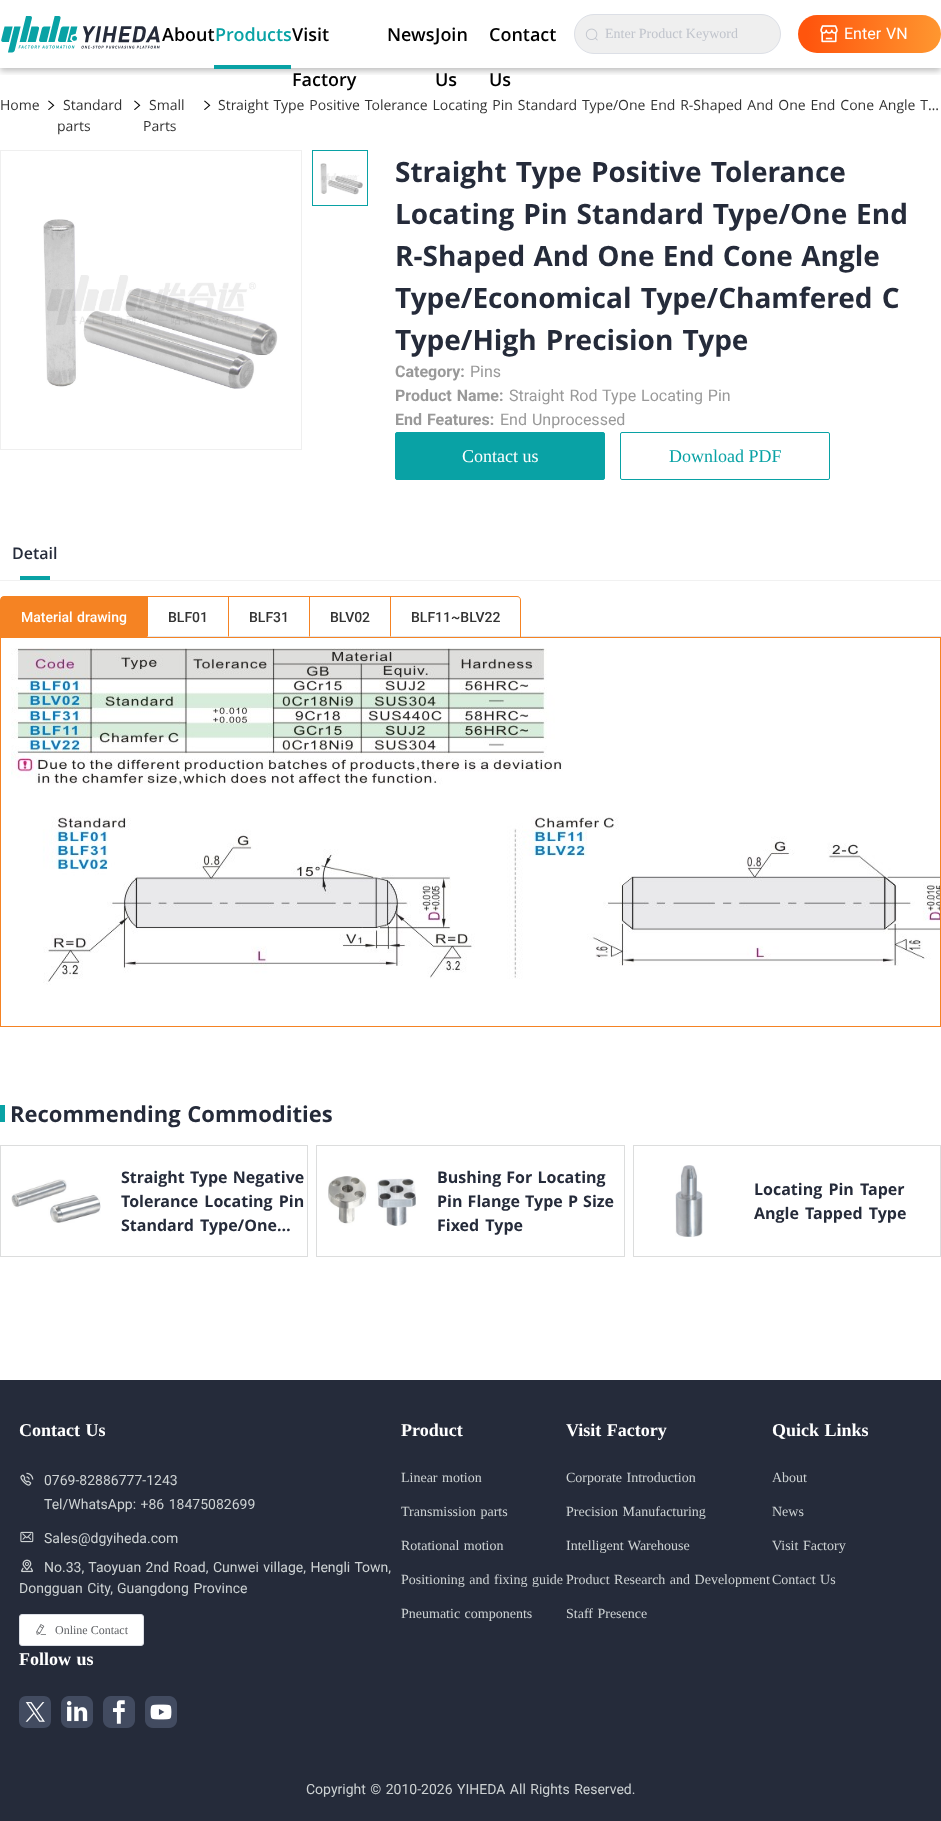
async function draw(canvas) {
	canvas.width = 941;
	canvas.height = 1821;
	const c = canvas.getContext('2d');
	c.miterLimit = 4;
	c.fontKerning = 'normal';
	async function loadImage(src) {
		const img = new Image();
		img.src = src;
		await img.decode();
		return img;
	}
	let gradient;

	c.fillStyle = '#fff';
	c.fillRect(0, 0, 941, 1821);
	c.save();
	c.beginPath();
	c.rect(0, 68, 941, 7);
	c.clip();
	c.fillStyle = '#00000040';
	c.filter = 'blur(3px)';
	c.beginPath();
	c.rect(0, 3, 941, 68);
	c.fill();
	c.filter = 'none';
	c.restore();
	c.drawImage(await loadImage('img1.png'), 1, 16, 159, 37);
	c.font = '600 18px Open Sans';
	c.fillStyle = '#000';
	c.fillText('About', 162, 41);
	c.fillStyle = '#09a2a5';
	c.fillText('Products', 215, 41);
	c.fillRect(214, 65, 77, 4);
	c.fillStyle = '#000';
	for (const [text, x, y] of [
		['Visit', 292, 41],
		['Factory', 292, 86],
		['News', 387, 41],
		['Join', 435, 41],
		['Us', 435, 86],
		['Contact', 489, 41],
		['Us', 489, 86],
	]) {
		c.fillText(text, x, y);
	}
	c.fillStyle = '#efefef';
	c.beginPath();
	c.roundRect(574.5, 14.5, 206, 39, 19.5);
	c.fill();
	c.strokeStyle = '#dcdfe6';
	c.stroke();
	c.drawImage(await loadImage('img2.png'), 585, 28, 13, 13);
	c.font = '14px Liberation Serif';
	c.fillStyle = '#c0c4cc';
	c.fillText('Enter Product Keyword', 605, 38);
	gradient = c.createLinearGradient(797, 30, 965, 39);
	gradient.addColorStop(0.06, '#ff550d');
	gradient.addColorStop(1, '#ffa336');
	c.fillStyle = gradient;
	c.beginPath();
	c.roundRect(798, 15, 143, 38, 19);
	c.fill();
	c.drawImage(await loadImage('img3.png'), 820, 25, 18, 18);
	c.wordSpacing = '1px';
	c.font = '16px Roboto';
	c.fillStyle = '#fff';
	c.fillText('Enter VN', 844, 39);
	c.wordSpacing = '0px';
	c.font = '14px Open Sans';
	c.fillStyle = '#333';
	c.fillText('Home', 0, 110);
	c.drawImage(await loadImage('img4.png'), 48, 100, 7, 10);
	c.fillText('Standard', 63, 110);
	c.fillText('parts', 57, 131);
	c.drawImage(await loadImage('img4.png'), 134, 100, 7, 10);
	c.fillText('Small', 149, 110);
	c.fillText('Parts', 143, 131);
	c.drawImage(await loadImage('img4.png'), 204, 100, 7, 10);
	c.wordSpacing = '1.25px';
	c.fillText('Straight Type Positive Tolerance Locating Pin Standard Type/One End R-Shaped And One End Cone Angle T…', 218, 110);
	c.strokeStyle = '#efefef';
	c.strokeRect(0.5, 150.5, 301, 299);
	c.drawImage(await loadImage('img5.png'), 43, 219, 235, 170);
	c.strokeStyle = '#09a2a5';
	c.strokeRect(312.5, 150.5, 55, 55);
	c.drawImage(await loadImage('img6.png'), 320, 163, 43, 32);
	c.wordSpacing = '2px';
	c.font = 'bold 28px Open Sans';
	c.fillStyle = '#252b3a';
	c.fillText('Straight Type Positive Tolerance', 395, 182);
	c.wordSpacing = '1.5px';
	c.fillText('Locating Pin Standard Type/One End', 395, 224);
	c.wordSpacing = '1px';
	c.fillText('R-Shaped And One End Cone Angle', 395, 266);
	c.wordSpacing = '2px';
	c.fillText('Type/Economical Type/Chamfered C', 395, 308);
	c.fillText('Type/High Precision Type', 395, 350);
	c.wordSpacing = '0px';
	c.font = 'bold 16px Roboto';
	c.fillStyle = '#999';
	c.fillText('Category:', 395, 377);
	c.font = '16px Roboto';
	c.fillText('Pins', 470, 377);
	c.wordSpacing = '1px';
	c.font = 'bold 16px Roboto';
	c.fillText('Product Name:', 395, 401);
	c.font = '16px Roboto';
	c.fillText('Straight Rod Type Locating Pin', 509, 401);
	c.font = 'bold 16px Roboto';
	c.fillText('End Features:', 395, 425);
	c.font = '16px Roboto';
	c.fillText('End Unprocessed', 500, 425);
	c.fillStyle = '#09a2a5';
	c.beginPath();
	c.roundRect(395.5, 432.5, 209, 47, 1.5);
	c.fill();
	c.stroke();
	c.wordSpacing = '0px';
	c.font = '18px Liberation Serif';
	c.fillStyle = '#fff';
	c.fillText('Contact us', 462, 462);
	c.beginPath();
	c.roundRect(620.5, 432.5, 209, 47, 1.5);
	c.stroke();
	c.fillStyle = '#09a2a5';
	c.fillText('Download PDF', 669, 462);
	c.font = '600 16px Open Sans';
	c.fillStyle = '#252b3a';
	c.fillText('Detail', 12, 559);
	c.fillStyle = '#09a2a5';
	c.fillRect(20, 576, 30, 4);
	c.fillStyle = '#e4e7ed';
	c.fillRect(147, 636, 794, 1);
	c.fillStyle = '#f58323';
	c.beginPath();
	c.moveTo(4, 596);
	c.lineTo(517, 596);
	c.bezierCurveTo(519, 596, 521, 598, 521, 600);
	c.lineTo(521, 637);
	c.lineTo(0, 637);
	c.lineTo(0, 600);
	c.bezierCurveTo(0, 598, 2, 596, 4, 596);
	c.closePath();
	c.moveTo(4, 597);
	c.lineTo(517, 597);
	c.bezierCurveTo(519, 597, 520, 598, 520, 600);
	c.lineTo(520, 637);
	c.lineTo(1, 637);
	c.lineTo(1, 600);
	c.bezierCurveTo(1, 598, 2, 597, 4, 597);
	c.closePath();
	c.fill('evenodd');
	c.fillRect(1, 597, 146, 40);
	c.wordSpacing = '1px';
	c.font = '500 14px Roboto';
	c.fillStyle = '#fff';
	c.fillText('Material drawing', 21, 622);
	c.fillStyle = '#f58323';
	c.beginPath();
	c.moveTo(147, 637);
	c.lineTo(147, 597);
	c.lineTo(148, 597);
	c.lineTo(148, 636);
	c.closePath();
	c.fill();
	c.wordSpacing = '0px';
	c.fillStyle = '#333';
	c.fillText('BLF01', 168, 622);
	c.fillStyle = '#f58323';
	c.beginPath();
	c.moveTo(228, 637);
	c.lineTo(228, 597);
	c.lineTo(229, 597);
	c.lineTo(229, 636);
	c.closePath();
	c.fill();
	c.fillStyle = '#333';
	c.fillText('BLF31', 249, 622);
	c.fillStyle = '#f58323';
	c.beginPath();
	c.moveTo(309, 637);
	c.lineTo(309, 597);
	c.lineTo(310, 597);
	c.lineTo(310, 636);
	c.closePath();
	c.fill();
	c.fillStyle = '#333';
	c.fillText('BLV02', 330, 622);
	c.fillStyle = '#f58323';
	c.beginPath();
	c.moveTo(390, 637);
	c.lineTo(390, 597);
	c.lineTo(391, 597);
	c.lineTo(391, 636);
	c.closePath();
	c.fill();
	c.fillStyle = '#333';
	c.fillText('BLF11~BLV22', 411, 622);
	c.strokeStyle = '#f58323';
	c.strokeRect(0.5, 637.5, 940, 389);
	c.drawImage(await loadImage('img7.png'), 11, 648, 929, 337);
	c.fillStyle = '#f1f1f1';
	c.fillRect(0, 580, 941, 1);
	c.fillStyle = '#09a2a5';
	c.fillRect(0, 1105, 5, 17);
	c.wordSpacing = '1px';
	c.font = 'bold 22px Open Sans';
	c.fillStyle = '#252b3a';
	c.fillText('Recommending Commodities', 10, 1122);
	c.strokeStyle = '#dcdddd';
	c.strokeRect(0.5, 1145.5, 307, 111);
	c.drawImage(await loadImage('img8.png'), 11, 1179, 90, 44);
	c.font = 'bold 16px Open Sans';
	c.fillText('Straight Type Negative', 121, 1183);
	c.wordSpacing = '2px';
	c.fillText('Tolerance Locating Pin', 121, 1207);
	c.fillText('Standard Type/One…', 121, 1231);
	c.strokeRect(316.5, 1145.5, 308, 111);
	c.drawImage(await loadImage('img9.png'), 328, 1176, 88, 50);
	c.wordSpacing = '1px';
	c.fillText('Bushing For Locating', 437, 1183);
	c.fillText('Pin Flange Type P Size', 437, 1207);
	c.wordSpacing = '2px';
	c.fillText('Fixed Type', 437, 1231);
	c.strokeRect(633.5, 1145.5, 307, 111);
	c.drawImage(await loadImage('img10.png'), 675, 1165, 28, 72);
	c.fillText('Locating Pin Taper', 754, 1195);
	c.fillText('Angle Tapped Type', 754, 1219);
	c.fillRect(0, 1380, 941, 441);
	c.wordSpacing = '1px';
	c.font = 'bold 18px Liberation Serif';
	c.fillStyle = '#fff';
	c.fillText('Contact Us', 19, 1436);
	c.drawImage(await loadImage('img11.png'), 20, 1472, 14, 14);
	c.wordSpacing = '0px';
	c.font = '14px Roboto';
	c.fillStyle = '#cdd2d3';
	c.fillText('0769-82886777-1243', 44, 1485);
	c.wordSpacing = '1px';
	c.fillText('Tel/WhatsApp: +86 18475082699', 44, 1509);
	c.drawImage(await loadImage('img12.png'), 20, 1531, 14, 12);
	c.wordSpacing = '0px';
	c.fillText('Sales@dgyiheda.com', 44, 1543);
	c.drawImage(await loadImage('img13.png'), 21, 1559, 12, 14);
	c.wordSpacing = '1px';
	for (const [text, x, y] of [
		['No.33, Taoyuan 2nd Road, Cunwei village, Hengli Town,', 44, 1572],
		['Dongguan City,', 19, 1593],
		['Guangdong Province', 117, 1593],
	]) {
		c.fillText(text, x, y);
	}
	c.fillStyle = '#fff';
	c.beginPath();
	c.roundRect(19.5, 1614.5, 124, 31, 2.5);
	c.fill();
	c.strokeStyle = '#dcdfe6';
	c.stroke();
	c.drawImage(await loadImage('img14.png'), 36, 1624, 10, 11);
	c.wordSpacing = '0px';
	c.font = '12px Liberation Serif';
	c.fillStyle = '#606266';
	c.fillText('Online Contact', 55, 1634);
	c.font = 'bold 18px Liberation Serif';
	c.fillStyle = '#fff';
	c.fillText('Product', 401, 1436);
	c.wordSpacing = '1px';
	c.font = '14px Liberation Serif';
	c.fillStyle = '#cdd2d3';
	for (const [text, x, y] of [
		['Linear motion', 401, 1482],
		['Transmission parts', 401, 1516],
		['Rotational motion', 401, 1550],
		['Positioning and fixing guide', 401, 1584],
		['Pneumatic components', 401, 1618],
	]) {
		c.fillText(text, x, y);
	}
	c.font = 'bold 18px Liberation Serif';
	c.fillStyle = '#fff';
	c.fillText('Visit Factory', 566, 1436);
	c.font = '14px Liberation Serif';
	c.fillStyle = '#cdd2d3';
	for (const [text, x, y] of [
		['Corporate Introduction', 566, 1482],
		['Precision Manufacturing', 566, 1516],
		['Intelligent Warehouse', 566, 1550],
		['Product Research and Development', 566, 1584],
		['Staff Presence', 566, 1618],
	]) {
		c.fillText(text, x, y);
	}
	c.font = 'bold 18px Liberation Serif';
	c.fillStyle = '#fff';
	c.fillText('Quick Links', 772, 1436);
	c.wordSpacing = '0px';
	c.font = '14px Liberation Serif';
	c.fillStyle = '#cdd2d3';
	c.fillText('About', 772, 1482);
	c.fillText('News', 772, 1516);
	c.wordSpacing = '1px';
	c.fillText('Visit Factory', 772, 1550);
	c.fillText('Contact Us', 772, 1584);
	c.font = 'bold 18px Liberation Serif';
	c.fillStyle = '#fff';
	c.fillText('Follow us', 19, 1665);
	c.drawImage(await loadImage('img15.png'), 19, 1696, 32, 32);
	c.drawImage(await loadImage('img16.png'), 61, 1696, 32, 32);
	c.drawImage(await loadImage('img17.png'), 103, 1696, 32, 32);
	c.drawImage(await loadImage('img18.png'), 145, 1696, 32, 32);
	c.font = '14px Roboto';
	c.fillStyle = '#cdd2d3';
	c.fillText('Copyright © 2010-2026 YIHEDA All Rights Reserved.', 306, 1794);
}

draw(document.querySelector('canvas'));
